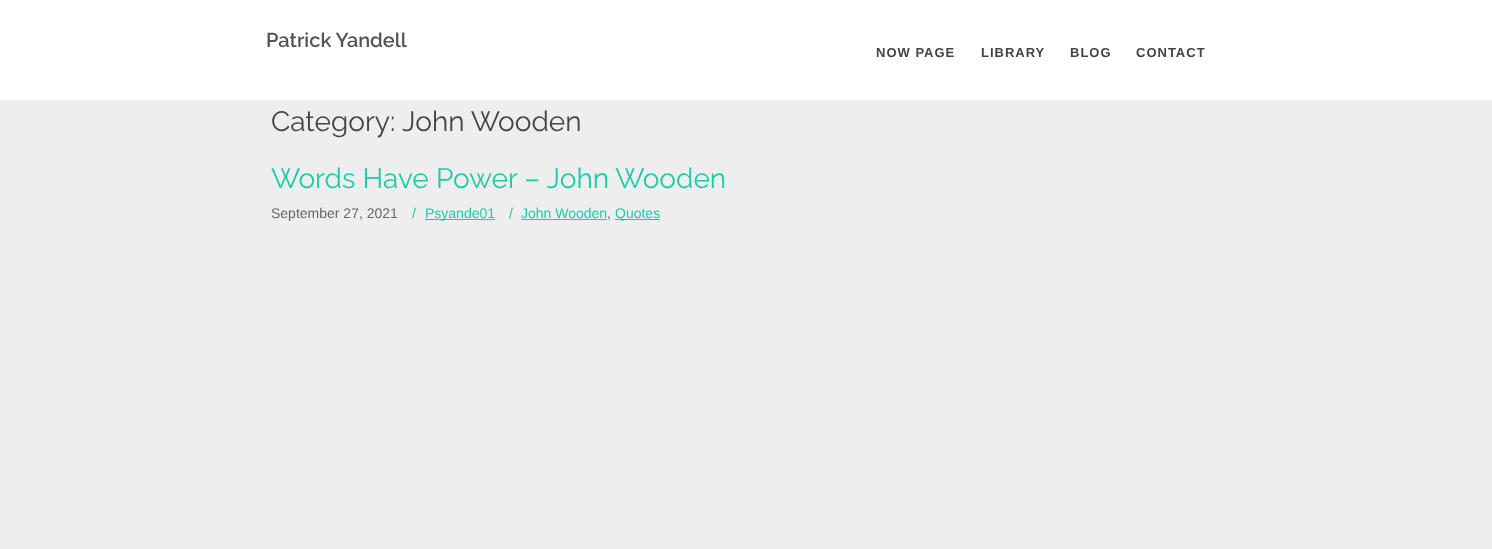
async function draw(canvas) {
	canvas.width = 1492;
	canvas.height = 549;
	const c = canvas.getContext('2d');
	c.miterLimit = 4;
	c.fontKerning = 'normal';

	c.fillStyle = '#eee';
	c.fillRect(0, 0, 1492, 549);
	c.fillStyle = '#808080';
	c.filter = 'blur(0.5px)';
	c.beginPath();
	c.rect(1, 2, 1490, 98);
	c.fill();
	c.filter = 'none';
	c.fillStyle = '#fff';
	c.fillRect(0, 0, 1492, 100);
	c.font = '600 20px Raleway';
	c.fillStyle = '#555';
	c.fillText('Patrick Yandell', 266, 47);
	c.letterSpacing = '1px';
	c.font = 'bold 13px Liberation Sans';
	c.fillStyle = '#444';
	for (const [text, x, y] of [
		['NOW PAGE', 876, 57],
		['LIBRARY', 981, 57],
		['BLOG', 1070, 57],
		['CONTACT', 1136, 57],
	]) {
		c.fillText(text, x, y);
	}
	c.letterSpacing = '0px';
	c.font = '28px Raleway';
	c.fillText('Category:', 271, 131);
	c.fillText('John Wooden', 402, 131);
	c.fillStyle = '#1ccba8';
	c.fillText('Words Have Power – John Wooden', 271, 188);
	c.font = '14px Liberation Sans';
	c.fillStyle = '#666';
	c.fillText('September 27, 2021', 271, 218);
	c.fillStyle = '#1ccba8';
	c.fillText('/', 412, 218);
	c.fillRect(425, 219, 70, 1);
	for (const [text, x, y] of [
		['Psyande01', 425, 218],
		['/', 509, 218],
		['John Wooden', 521, 218],
	]) {
		c.fillText(text, x, y);
	}
	c.fillStyle = '#666';
	c.fillText(',', 607, 218);
	c.fillStyle = '#1ccba8';
	c.fillRect(521, 219, 86, 1);
	c.fillRect(615, 219, 45, 1);
	c.fillText('Quotes', 615, 218);
}

draw(document.querySelector('canvas'));
